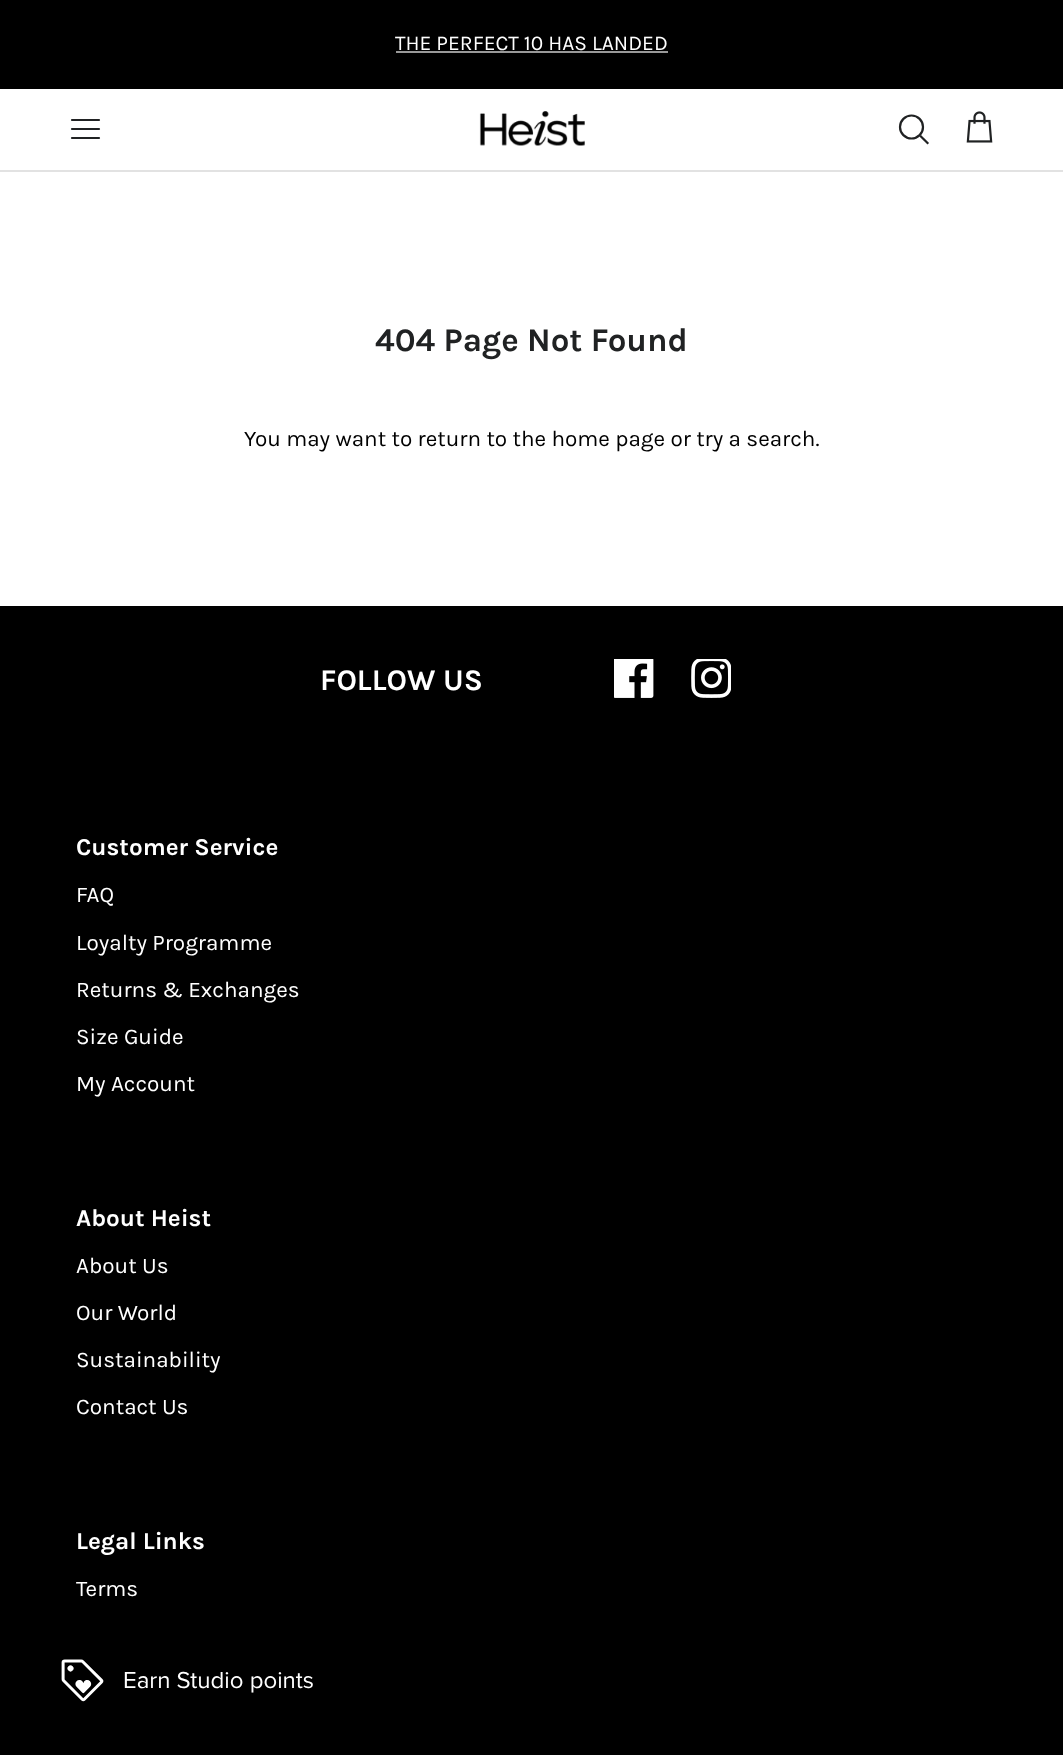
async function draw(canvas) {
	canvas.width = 1063;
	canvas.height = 1755;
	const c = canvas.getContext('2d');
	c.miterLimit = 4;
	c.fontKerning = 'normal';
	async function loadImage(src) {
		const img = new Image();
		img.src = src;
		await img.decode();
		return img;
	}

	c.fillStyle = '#fff';
	c.fillRect(0, 0, 1063, 1755);
	c.fillStyle = '#000';
	c.fillRect(0, 0, 1063, 89);
	c.font = '21px Karla';
	c.fillStyle = '#fff';
	c.fillText('THE PERFECT 10 HAS LANDED', 395, 50);
	c.fillStyle = '#999';
	c.fillRect(396, 51, 272, 2);
	c.fillStyle = '#e2e2e2';
	c.fillRect(0, 170, 1063, 2);
	c.beginPath();
	c.moveTo(72, 129);
	c.lineTo(99, 129);
	c.moveTo(72, 120);
	c.lineTo(99, 120);
	c.moveTo(72, 138);
	c.lineTo(99, 138);
	c.strokeStyle = '#202223';
	c.lineWidth = 2.2;
	c.lineCap = 'round';
	c.lineJoin = 'round';
	c.stroke();
	c.drawImage(await loadImage('img1.png'), 479, 111, 106, 35);
	c.beginPath();
	c.arc(911.5, 127, 11.5, 0, 2 * Math.PI);
	c.stroke();
	c.beginPath();
	c.moveTo(921, 136.5);
	c.lineTo(927.5, 143);
	c.lineCap = 'square';
	c.lineJoin = 'miter';
	c.stroke();
	c.drawImage(await loadImage('img2.png'), 966, 111, 27, 32);
	c.font = 'bold 33px Karla';
	c.fillStyle = '#202223';
	c.fillText('404 Page Not Found', 375, 351);
	c.font = '22.5px Karla';
	c.fillStyle = '#000';
	c.fillText('You may want to return to the home page or try a search.', 244, 446);
	c.fillRect(0, 606, 1063, 1149);
	c.font = 'bold 30px Karla';
	c.fillStyle = '#fff';
	c.fillText('FOLLOW US', 320, 690);
	c.drawImage(await loadImage('img3.png'), 614, 659, 40, 39);
	c.drawImage(await loadImage('img4.png'), 691, 659, 40, 39);
	c.font = 'bold 24.25px Karla';
	c.fillText('Customer Service', 76, 855);
	c.font = '22.5px Karla';
	for (const [text, x, y] of [
		['FAQ', 76, 902],
		['Loyalty Programme', 76, 950],
		['Returns & Exchanges', 76, 997],
		['Size Guide', 76, 1044],
		['My Account', 76, 1091],
	]) {
		c.fillText(text, x, y);
	}
	c.font = 'bold 24.25px Karla';
	c.fillText('About Heist', 76, 1226);
	c.font = '22.5px Karla';
	for (const [text, x, y] of [
		['About Us', 76, 1273],
		['Our World', 76, 1320],
		['Sustainability', 76, 1367],
		['Contact Us', 76, 1414],
	]) {
		c.fillText(text, x, y);
	}
	c.font = 'bold 24.25px Karla';
	c.fillText('Legal Links', 76, 1549);
	c.font = '22.5px Karla';
	c.fillText('Terms', 76, 1596);
	c.drawImage(await loadImage('img5.png'), 61, 1635, 252, 67);
}

draw(document.querySelector('canvas'));
